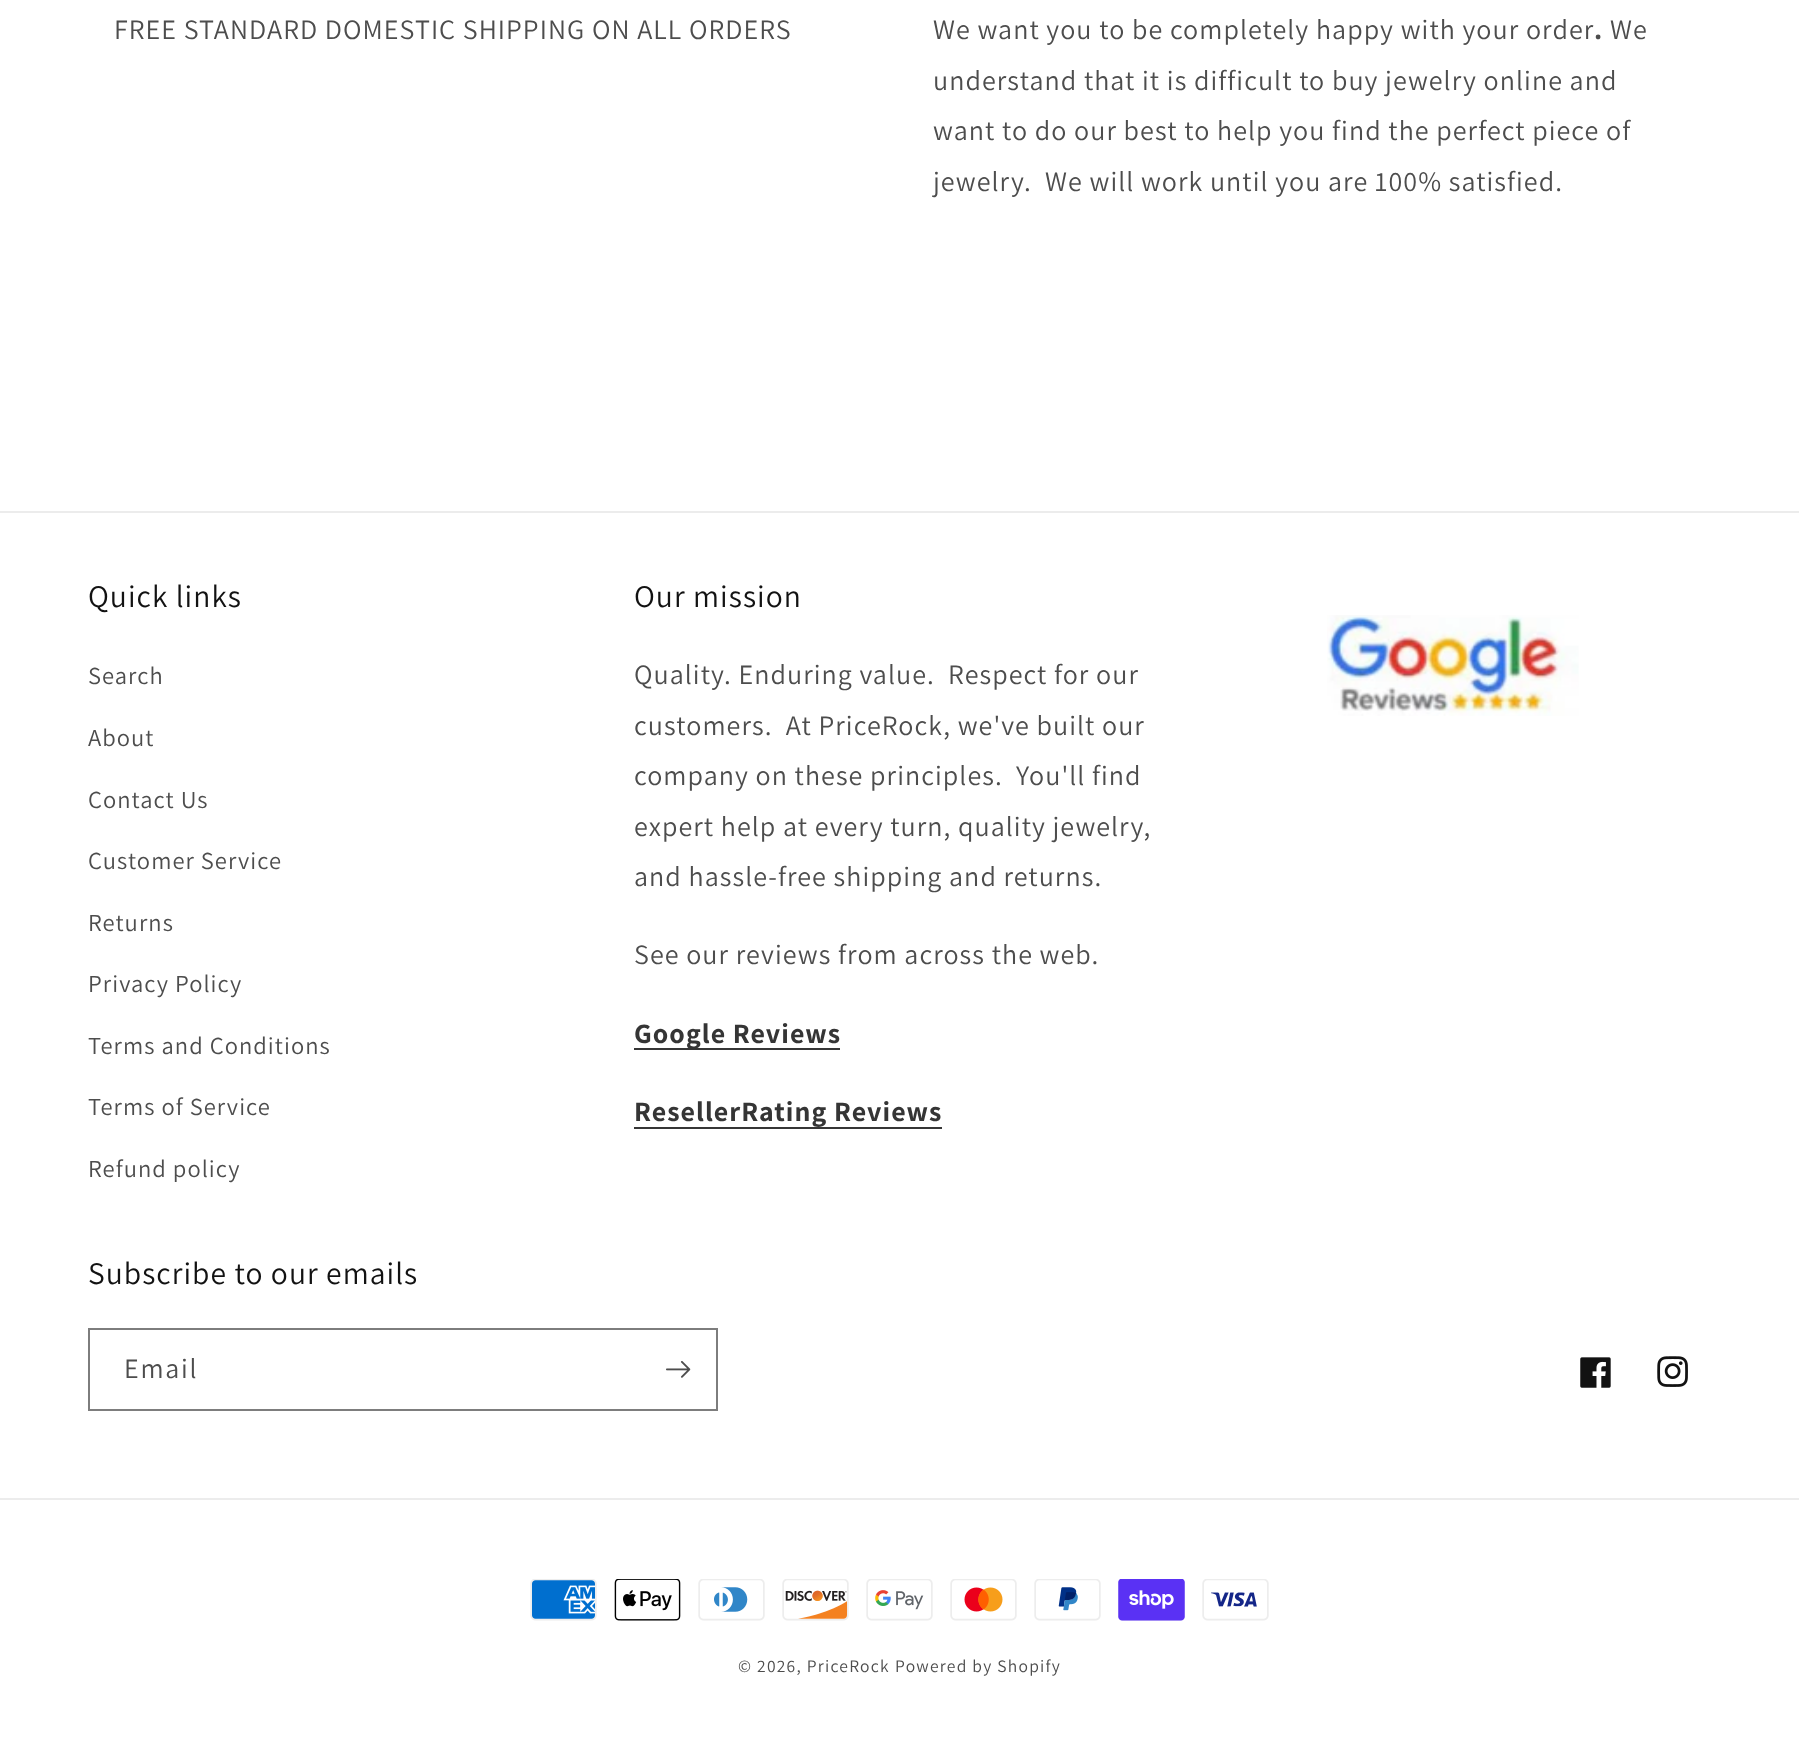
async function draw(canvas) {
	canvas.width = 1799;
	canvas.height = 1746;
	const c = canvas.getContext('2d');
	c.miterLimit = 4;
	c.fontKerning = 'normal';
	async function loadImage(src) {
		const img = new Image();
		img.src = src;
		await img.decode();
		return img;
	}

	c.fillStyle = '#fff';
	c.fillRect(0, 0, 1799, 1746);
	c.letterSpacing = '1.05px';
	c.font = '28px Assistant';
	c.fillStyle = '#4d4d4d';
	c.fillText('FREE STANDARD DOMESTIC SHIPPING ON ALL ORDERS', 114, 39);
	c.fillText('We want you to be completely happy with your order', 933, 39);
	c.font = 'bold 28px Assistant';
	c.fillText('.', 1594, 39);
	c.font = '28px Assistant';
	for (const [text, x, y] of [
		['We', 1610, 39],
		['understand that it is difficult to buy jewelry online and', 933, 90],
		['want to do our best to help you find the perfect piece of', 933, 140],
		['jewelry.  We will work until you are 100% satisfied.', 933, 191],
	]) {
		c.fillText(text, x, y);
	}
	c.fillStyle = '#ececec';
	c.fillRect(0, 511, 1799, 2);
	c.font = '31.5px Assistant';
	c.fillStyle = '#121212';
	c.fillText('Quick links', 88, 607);
	c.font = '24.5px Assistant';
	c.fillStyle = '#4d4d4d';
	for (const [text, x, y] of [
		['Search', 88, 684],
		['About', 88, 746],
		['Contact Us', 88, 808],
		['Customer Service', 88, 869],
		['Returns', 88, 931],
		['Privacy Policy', 88, 992],
		['Terms and Conditions', 88, 1054],
		['Terms of Service', 88, 1115],
		['Refund policy', 88, 1177],
	]) {
		c.fillText(text, x, y);
	}
	c.font = '31.5px Assistant';
	c.fillStyle = '#121212';
	c.fillText('Our mission', 634, 607);
	c.font = '28px Assistant';
	c.fillStyle = '#4d4d4d';
	for (const [text, x, y] of [
		['Quality. Enduring value.  Respect for our', 634, 684],
		['customers.  At PriceRock, we\'ve built our', 634, 735],
		['company on these principles.  You\'ll find', 634, 785],
		['expert help at every turn, quality jewelry,', 634, 836],
		['and hassle-free shipping and returns.', 634, 886],
		['See our reviews from across the web.', 634, 964],
	]) {
		c.fillText(text, x, y);
	}
	c.fillStyle = '#363636';
	c.fillRect(634, 1048, 206, 2);
	c.font = 'bold 28px Assistant';
	c.fillStyle = '#353535';
	c.fillText('Google Reviews', 634, 1043);
	c.fillText('ResellerRating Reviews', 634, 1121);
	c.fillStyle = '#363636';
	c.fillRect(634, 1127, 308, 2);
	c.drawImage(await loadImage('img1.png'), 1327, 615, 252, 101);
	c.font = '31.5px Assistant';
	c.fillStyle = '#121212';
	c.fillText('Subscribe to our emails', 88, 1284);
	c.strokeStyle = '#7d7d7d';
	c.lineWidth = 2;
	c.strokeRect(89, 1329, 628, 81);
	c.letterSpacing = '1.75px';
	c.font = '28px Assistant';
	c.fillStyle = '#4d4d4d';
	c.fillText('Email', 124, 1378);
	c.drawImage(await loadImage('img2.png'), 666, 1361, 25, 17);
	c.drawImage(await loadImage('img3.png'), 1580, 1357, 31, 31);
	c.drawImage(await loadImage('img4.png'), 1657, 1356, 31, 31);
	c.fillStyle = '#ececec';
	c.fillRect(0, 1498, 1799, 2);
	c.drawImage(await loadImage('img5.png'), 530, 1579, 67, 42);
	c.drawImage(await loadImage('img6.png'), 614, 1579, 67, 42);
	c.drawImage(await loadImage('img7.png'), 698, 1579, 67, 42);
	c.drawImage(await loadImage('img8.png'), 782, 1579, 67, 42);
	c.drawImage(await loadImage('img9.png'), 866, 1579, 67, 42);
	c.drawImage(await loadImage('img10.png'), 950, 1579, 67, 42);
	c.drawImage(await loadImage('img11.png'), 1034, 1579, 67, 42);
	c.drawImage(await loadImage('img12.png'), 1118, 1579, 67, 42);
	c.drawImage(await loadImage('img13.png'), 1202, 1579, 67, 42);
	c.letterSpacing = '1.25px';
	c.font = '17.5px Assistant';
	c.fillStyle = '#4d4d4d';
	c.fillText('© 2026, PriceRock', 738, 1672);
	c.fillText('Powered by Shopify', 895, 1672);
}

draw(document.querySelector('canvas'));
